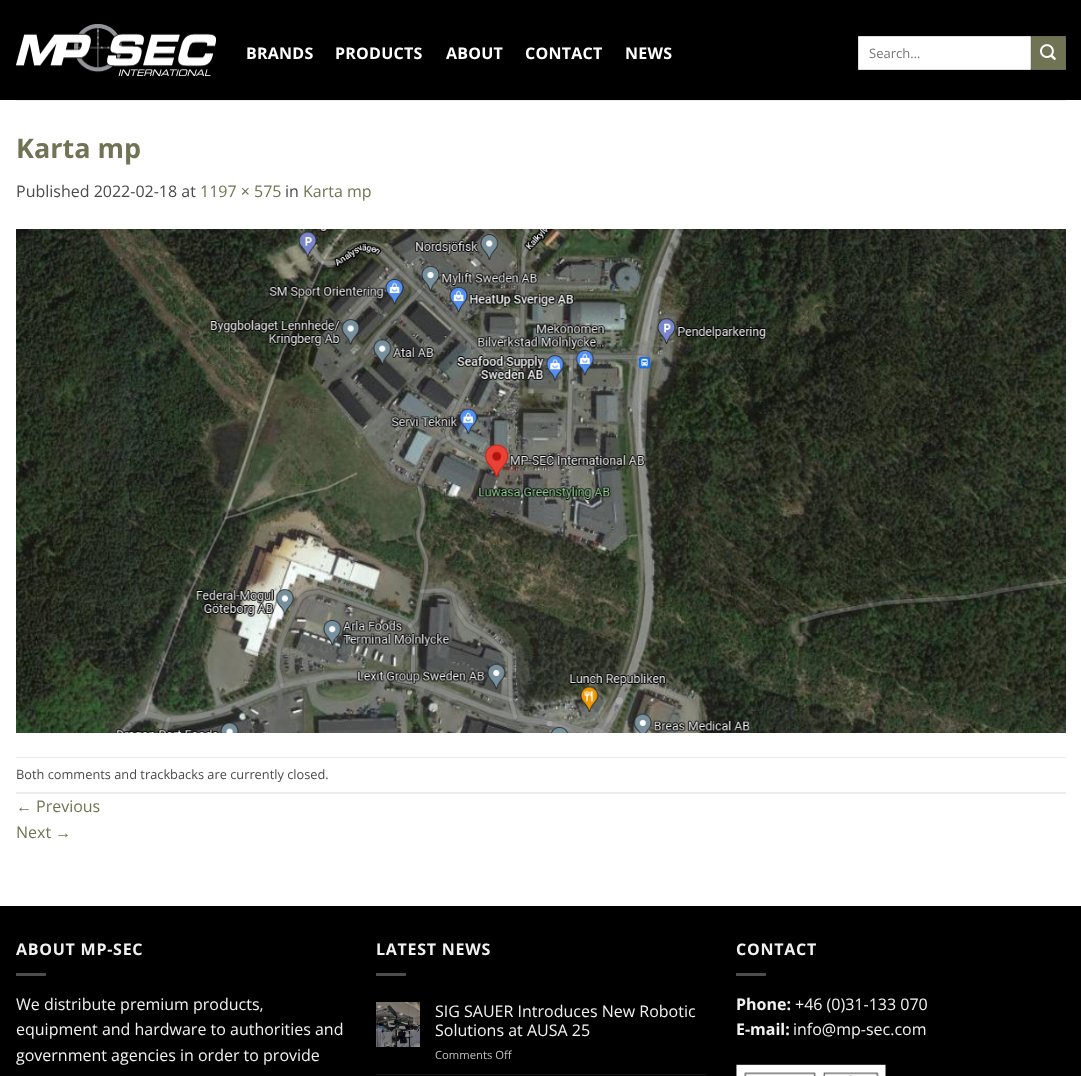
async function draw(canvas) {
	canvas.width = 1081;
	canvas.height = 1076;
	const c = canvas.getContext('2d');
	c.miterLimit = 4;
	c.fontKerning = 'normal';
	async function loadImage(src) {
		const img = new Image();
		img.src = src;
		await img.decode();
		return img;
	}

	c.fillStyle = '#fff';
	c.fillRect(0, 0, 1081, 1076);
	c.fillStyle = '#000';
	c.fillRect(0, 0, 1081, 100);
	c.drawImage(await loadImage('img1.png'), 16, 24, 200, 52);
	c.letterSpacing = '0.25px';
	c.font = 'bold 16px Open Sans';
	c.fillStyle = '#fff';
	for (const [text, x, y] of [
		['BRANDS', 246, 59],
		['PRODUCTS', 335, 59],
		['ABOUT', 446, 59],
		['CONTACT', 525, 59],
		['NEWS', 625, 59],
	]) {
		c.fillText(text, x, y);
	}
	c.beginPath();
	c.rect(858.5, 36.5, 172, 33);
	c.fill();
	c.strokeStyle = '#ddd';
	c.stroke();
	c.letterSpacing = '0px';
	c.font = '13px Open Sans';
	c.fillStyle = '#757575';
	c.fillText('Search…', 869, 58);
	c.fillStyle = '#717454';
	c.beginPath();
	c.rect(1031.5, 36.5, 34, 33);
	c.fill();
	c.strokeStyle = '#6b6e50';
	c.stroke();
	c.drawImage(await loadImage('img2.png'), 1040, 44, 16, 16);
	c.fillStyle = '#ededed';
	c.fillRect(16, 100, 1050, 1);
	c.font = 'bold 27px Open Sans';
	c.fillStyle = '#717454';
	c.fillText('Karta mp', 16, 158);
	c.font = '16px Open Sans';
	c.fillStyle = '#4a4a4a';
	c.fillText('Published 2022-02-18 at', 16, 197);
	c.fillStyle = '#717454';
	c.fillText('1197 × 575', 200, 197);
	c.fillStyle = '#4a4a4a';
	c.fillText('in', 285, 197);
	c.fillStyle = '#717454';
	c.fillText('Karta mp', 303, 197);
	c.drawImage(await loadImage('img3.png'), 16, 229, 1050, 504);
	c.fillStyle = '#ececec';
	c.fillRect(16, 757, 1050, 1);
	c.fillRect(16, 792, 1050, 2);
	c.font = '12.8px Open Sans';
	c.fillStyle = '#4a4a4a';
	c.fillText('Both comments and trackbacks are currently closed.', 16, 779);
	c.font = '16px Liberation Sans';
	c.fillStyle = '#717454';
	c.fillText('←', 16, 812);
	c.font = '16px Open Sans';
	c.fillText('Previous', 36, 812);
	c.fillText('Next', 16, 838);
	c.font = '16px Liberation Sans';
	c.fillText('→', 55, 838);
	c.fillStyle = '#000';
	c.fillRect(0, 906, 1081, 170);
	c.letterSpacing = '0.75px';
	c.font = 'bold 16px Open Sans';
	c.fillStyle = '#f1f1f1';
	c.fillText('ABOUT MP-SEC', 16, 955);
	c.fillStyle = '#4d4d4d';
	c.fillRect(16, 973, 30, 3);
	c.letterSpacing = '0px';
	c.font = '16px Open Sans';
	c.fillStyle = '#f1f1f1';
	for (const [text, x, y] of [
		['We distribute premium products,', 16, 1010],
		['equipment and hardware to authorities and', 16, 1035],
		['government agencies in order to provide', 16, 1061],
	]) {
		c.fillText(text, x, y);
	}
	c.letterSpacing = '0.75px';
	c.font = 'bold 16px Open Sans';
	c.fillText('LATEST NEWS', 376, 955);
	c.fillStyle = '#4d4d4d';
	c.fillRect(376, 973, 30, 3);
	c.drawImage(await loadImage('img4.png'), 376, 1002, 44, 45);
	c.letterSpacing = '0px';
	c.font = '16px Open Sans';
	c.fillStyle = '#f1f1f1';
	c.fillText('SIG SAUER Introduces New Robotic', 435, 1017);
	c.fillText('Solutions at AUSA 25', 435, 1036);
	c.font = '11.25px Open Sans';
	c.fillStyle = '#c1c1c1';
	c.fillText('Comments Off', 435, 1059);
	c.fillStyle = '#141414';
	c.fillRect(376, 1074, 330, 1);
	c.letterSpacing = '0.75px';
	c.font = 'bold 16px Open Sans';
	c.fillStyle = '#f1f1f1';
	c.fillText('CONTACT', 736, 955);
	c.fillStyle = '#4d4d4d';
	c.fillRect(736, 973, 30, 3);
	c.letterSpacing = '0px';
	c.fillStyle = '#f1f1f1';
	c.fillText('Phone:', 736, 1010);
	c.font = '16px Open Sans';
	c.fillText('+46 (0)31-133 070', 795, 1010);
	c.font = 'bold 16px Open Sans';
	c.fillText('E-mail:', 736, 1035);
	c.font = '16px Open Sans';
	c.fillText('info@mp-sec.com', 793, 1035);
	c.drawImage(await loadImage('img5.png'), 736, 1064, 150, 12);
}

draw(document.querySelector('canvas'));
